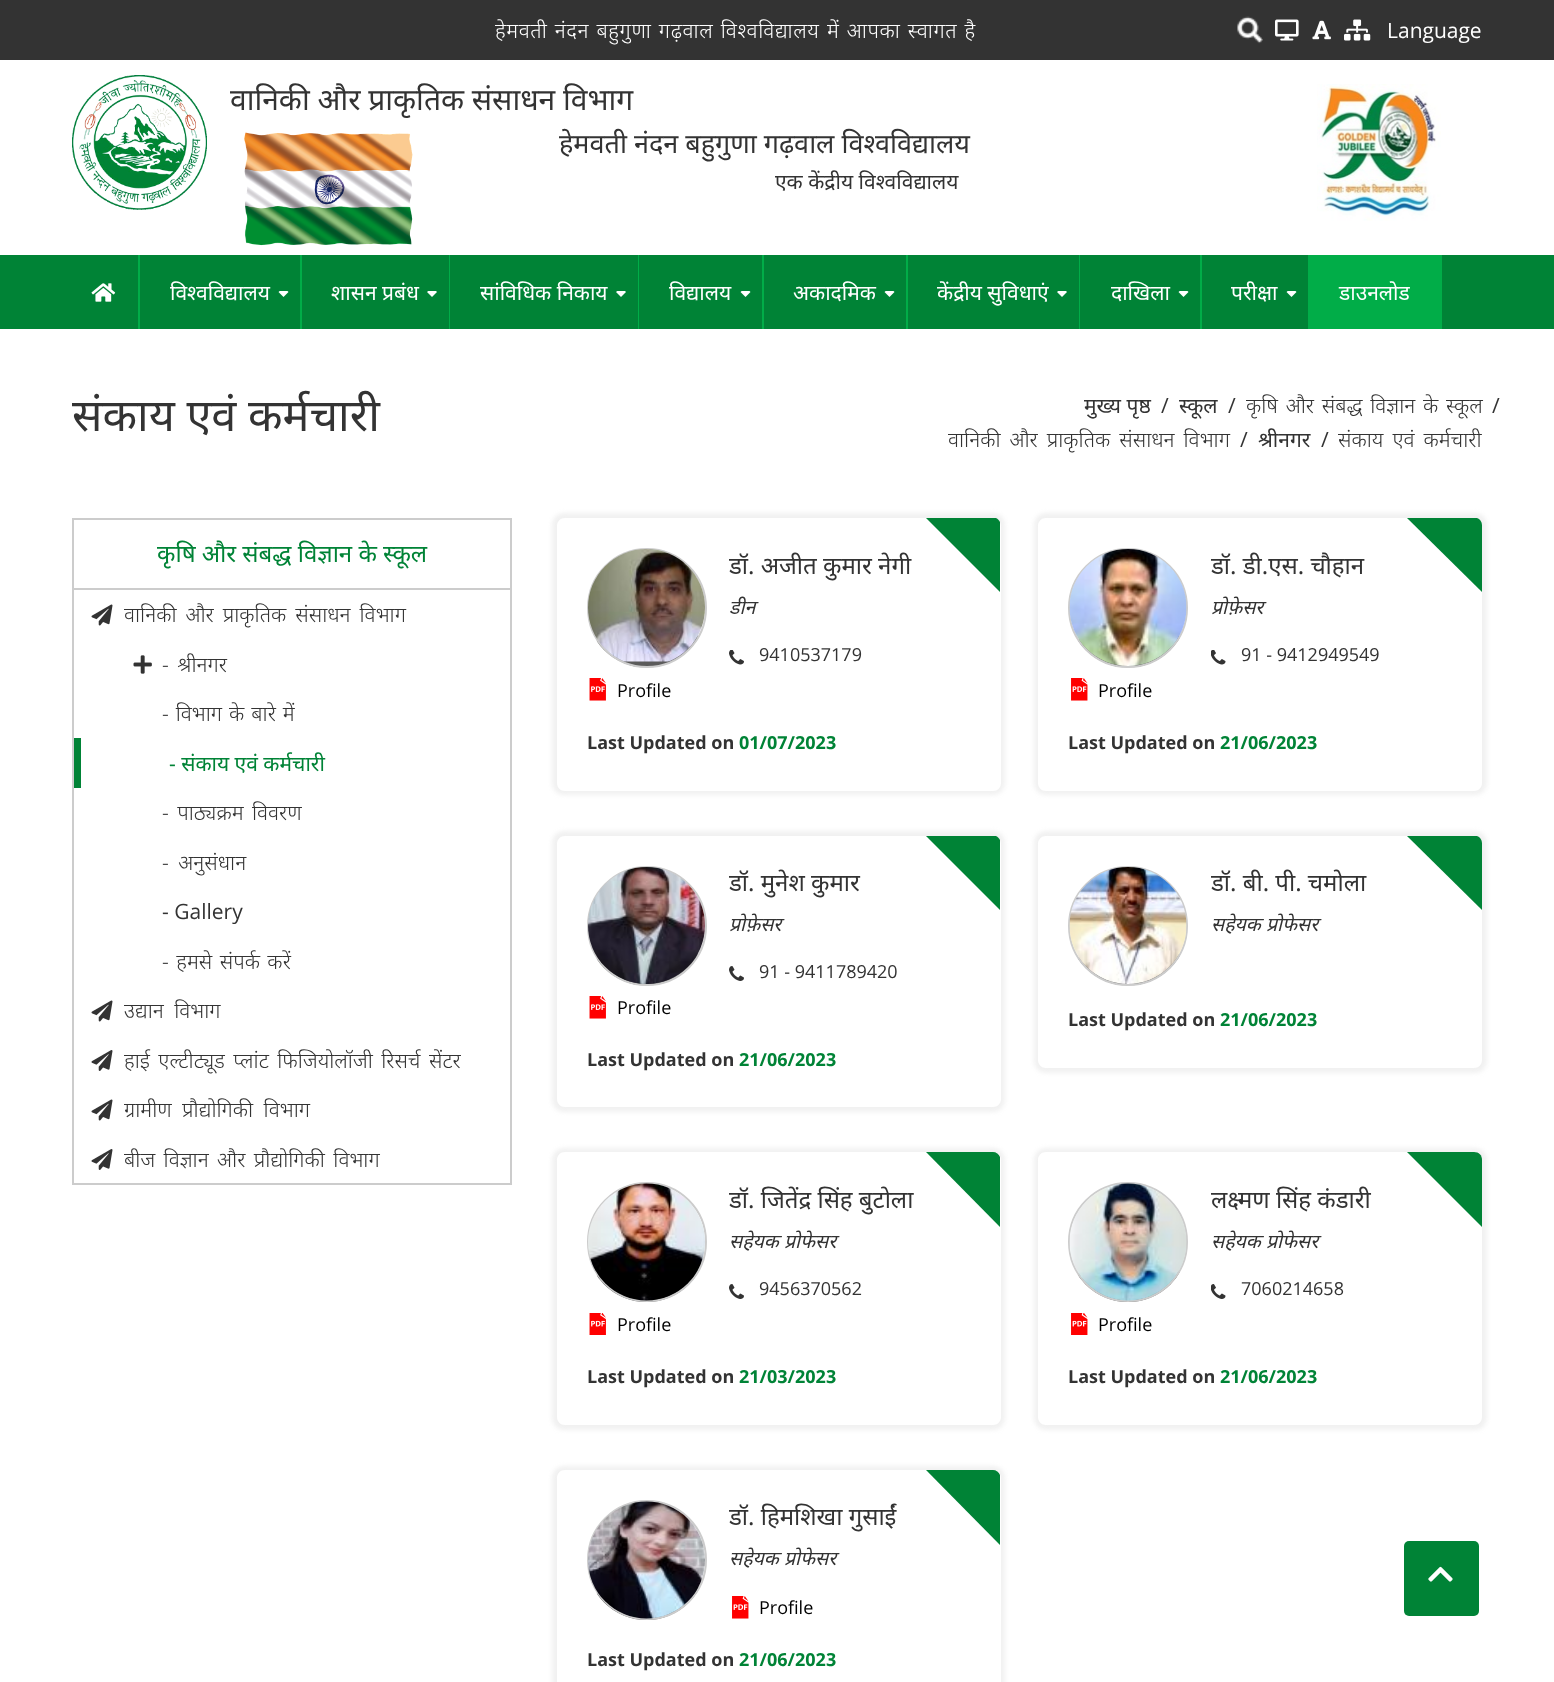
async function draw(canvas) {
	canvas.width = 1554;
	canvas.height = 1682;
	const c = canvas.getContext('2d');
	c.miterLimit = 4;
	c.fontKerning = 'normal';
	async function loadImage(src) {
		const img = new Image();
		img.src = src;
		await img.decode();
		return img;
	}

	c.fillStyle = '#fff';
	c.fillRect(0, 0, 1554, 1682);
	c.fillStyle = '#333';
	c.fillRect(0, 0, 1554, 60);
	c.letterSpacing = '0.6px';
	c.wordSpacing = '1.25px';
	c.font = '300 21px Noto Sans';
	c.fillStyle = '#fff';
	c.fillText('हेमवती नंदन बहुगुणा गढ़वाल विश्वविद्यालय में आपका स्वागत है', 495, 38);
	c.drawImage(await loadImage('img1.png'), 1237, 16, 26, 28);
	c.drawImage(await loadImage('img2.png'), 1275, 19, 24, 22);
	c.drawImage(await loadImage('img3.png'), 1312, 20, 19, 20);
	c.drawImage(await loadImage('img4.png'), 1344, 19, 27, 22);
	c.letterSpacing = '0px';
	c.wordSpacing = '0px';
	c.font = '21px Open Sans';
	c.fillText('Language', 1387, 38);
	c.drawImage(await loadImage('img5.png'), 72, 75, 135, 135);
	c.font = '30px Noto Sans';
	c.fillStyle = '#333';
	c.fillText('वानिकी और प्राकृतिक संसाधन विभाग', 230, 110);
	c.drawImage(await loadImage('img6.png'), 244, 132, 169, 114);
	c.font = '27px Noto Sans';
	c.fillText('हेमवती नंदन बहुगुणा गढ़वाल विश्वविद्यालय', 559, 153);
	c.font = '21px Noto Sans';
	c.fillText('एक केंद्रीय विश्वविद्यालय', 775, 189);
	c.drawImage(await loadImage('img7.png'), 1317, 84, 124, 137);
	c.fillStyle = '#008336';
	c.fillRect(0, 255, 1554, 74);
	c.fillStyle = '#01ad48';
	c.fillRect(138, 255, 2, 74);
	c.drawImage(await loadImage('img8.png'), 91, 283, 25, 19);
	c.fillRect(300, 255, 2, 74);
	c.fillStyle = '#fff';
	c.fillText('विश्वविद्यालय', 170, 300);
	c.beginPath();
	c.moveTo(280.5, 291);
	c.bezierCurveTo(279.5, 291, 279, 291.5, 278.5, 292);
	c.lineTo(283.5, 297);
	c.lineTo(288.5, 292);
	c.lineTo(287.5, 291);
	c.closePath();
	c.fill();
	c.fillStyle = '#01ad48';
	c.fillRect(449, 255, 1, 74);
	c.fillStyle = '#fff';
	c.fillText('शासन प्रबंध', 331, 300);
	c.beginPath();
	c.moveTo(429, 291);
	c.bezierCurveTo(428, 291, 427.5, 291.5, 427, 292);
	c.lineTo(432, 297);
	c.lineTo(437, 292);
	c.lineTo(436, 291);
	c.closePath();
	c.fill();
	c.fillStyle = '#01ad48';
	c.fillRect(638, 255, 1, 74);
	c.fillStyle = '#fff';
	c.fillText('सांविधिक निकाय', 480, 300);
	c.beginPath();
	c.moveTo(618, 291);
	c.bezierCurveTo(617, 291, 616.5, 291.5, 616, 292);
	c.lineTo(621, 297);
	c.lineTo(626, 292);
	c.lineTo(625, 291);
	c.closePath();
	c.fill();
	c.fillStyle = '#01ad48';
	c.fillRect(762, 255, 2, 74);
	c.fillStyle = '#fff';
	c.fillText('विद्यालय', 669, 300);
	c.beginPath();
	c.moveTo(742.5, 291);
	c.bezierCurveTo(741.5, 291, 741, 291.5, 740.5, 292);
	c.lineTo(745.5, 297);
	c.lineTo(750.5, 292);
	c.lineTo(749.5, 291);
	c.closePath();
	c.fill();
	c.fillStyle = '#01ad48';
	c.fillRect(906, 255, 2, 74);
	c.fillStyle = '#fff';
	c.fillText('अकादमिक', 793, 300);
	c.beginPath();
	c.moveTo(886.5, 291);
	c.bezierCurveTo(885.5, 291, 885, 291.5, 884.5, 292);
	c.lineTo(889.5, 297);
	c.lineTo(894.5, 292);
	c.lineTo(893.5, 291);
	c.closePath();
	c.fill();
	c.fillStyle = '#01ad48';
	c.fillRect(1079, 255, 1, 74);
	c.fillStyle = '#fff';
	c.fillText('केंद्रीय सुविधाएं', 937, 300);
	c.beginPath();
	c.moveTo(1059, 291);
	c.bezierCurveTo(1058, 291, 1057.5, 291.5, 1057, 292);
	c.lineTo(1062, 297);
	c.lineTo(1067, 292);
	c.lineTo(1066, 291);
	c.closePath();
	c.fill();
	c.fillStyle = '#01ad48';
	c.fillRect(1200, 255, 2, 74);
	c.fillStyle = '#fff';
	c.fillText('दाखिला', 1111, 300);
	c.beginPath();
	c.moveTo(1180.5, 291);
	c.bezierCurveTo(1179.5, 291, 1179, 291.5, 1178.5, 292);
	c.lineTo(1183.5, 297);
	c.lineTo(1188.5, 292);
	c.lineTo(1187.5, 291);
	c.closePath();
	c.fill();
	c.fillStyle = '#01ad48';
	c.fillRect(1308, 255, 2, 74);
	c.fillStyle = '#fff';
	c.fillText('परीक्षा', 1231, 300);
	c.beginPath();
	c.moveTo(1288.5, 291);
	c.bezierCurveTo(1287.5, 291, 1287, 291.5, 1286.5, 292);
	c.lineTo(1291.5, 297);
	c.lineTo(1296.5, 292);
	c.lineTo(1295.5, 291);
	c.closePath();
	c.fill();
	c.fillStyle = '#01ad48';
	c.fillRect(1310, 255, 132, 74);
	c.fillStyle = '#fff';
	c.fillText('डाउनलोड', 1339, 300);
	c.font = '45px Noto Sans';
	c.fillStyle = '#333';
	c.fillText('संकाय एवं कर्मचारी', 72, 431);
	c.font = '21px Noto Sans';
	c.fillText('मुख्य पृष्ठ', 1084, 413);
	c.font = '21px Open Sans';
	c.fillText('/', 1161, 413);
	c.font = '21px Noto Sans';
	c.fillText('स्कूल', 1179, 413);
	c.font = '21px Open Sans';
	c.fillText('/', 1228, 413);
	c.wordSpacing = '2.25px';
	c.font = '300 21px Noto Sans';
	c.fillText('कृषि और संबद्ध विज्ञान के स्कूल', 1246, 413);
	c.wordSpacing = '0px';
	c.font = '21px Open Sans';
	c.fillText('/', 1492, 413);
	c.wordSpacing = '3.5px';
	c.font = '300 21px Noto Sans';
	c.fillText('वानिकी और प्राकृतिक संसाधन विभाग', 948, 447);
	c.wordSpacing = '0px';
	c.font = '21px Open Sans';
	c.fillText('/', 1240, 447);
	c.font = '21px Noto Sans';
	c.fillText('श्रीनगर', 1258, 447);
	c.font = '21px Open Sans';
	c.fillText('/', 1321, 447);
	c.wordSpacing = '3.5px';
	c.font = '300 21px Noto Sans';
	c.fillText('संकाय एवं कर्मचारी', 1338, 447);
	c.strokeStyle = '#ccc';
	c.lineWidth = 2;
	c.strokeRect(73, 519, 438, 665);
	c.fillStyle = '#ccc';
	c.fillRect(74, 588, 436, 2);
	c.wordSpacing = '0px';
	c.font = '24px Noto Sans';
	c.fillStyle = '#008336';
	c.fillText('कृषि और संबद्ध विज्ञान के स्कूल', 157, 562);
	c.drawImage(await loadImage('img9.png'), 91, 604, 22, 22);
	c.wordSpacing = '3.5px';
	c.font = '300 21px Noto Sans';
	c.fillStyle = '#333';
	c.fillText('वानिकी और प्राकृतिक संसाधन विभाग', 124, 622);
	c.drawImage(await loadImage('img10.png'), 133, 655, 19, 19);
	c.wordSpacing = '3px';
	c.fillText('- श्रीनगर', 162, 672);
	c.wordSpacing = '1.5px';
	c.fillText('- विभाग के बारे में', 162, 721);
	c.fillStyle = '#008336';
	c.fillRect(74, 738, 7, 50);
	c.wordSpacing = '0px';
	c.font = '21px Noto Sans';
	c.fillText('- संकाय एवं कर्मचारी', 169, 771);
	c.wordSpacing = '3px';
	c.font = '300 21px Noto Sans';
	c.fillStyle = '#333';
	c.fillText('- पाठ्यक्रम विवरण', 162, 820);
	c.wordSpacing = '4px';
	c.fillText('- अनुसंधान', 162, 870);
	c.wordSpacing = '0px';
	c.font = '21px Open Sans';
	c.fillText('- Gallery', 162, 919);
	c.wordSpacing = '2px';
	c.font = '300 21px Noto Sans';
	c.fillText('- हमसे संपर्क करें', 162, 969);
	c.drawImage(await loadImage('img9.png'), 91, 1000, 22, 22);
	c.wordSpacing = '5px';
	c.fillText('उद्यान विभाग', 124, 1018);
	c.drawImage(await loadImage('img11.png'), 91, 1050, 22, 21);
	c.wordSpacing = '3px';
	c.fillText('हाई एल्टीट्यूड प्लांट फिजियोलॉजी रिसर्च सेंटर', 124, 1068);
	c.drawImage(await loadImage('img9.png'), 91, 1099, 22, 22);
	c.wordSpacing = '5px';
	c.fillText('ग्रामीण प्रौद्योगिकी विभाग', 124, 1117);
	c.drawImage(await loadImage('img11.png'), 91, 1149, 22, 21);
	c.wordSpacing = '3px';
	c.fillText('बीज विज्ञान और प्रौद्योगिकी विभाग', 124, 1167);
	c.save();
	c.beginPath();
	c.moveTo(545, 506);
	c.lineTo(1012, 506);
	c.lineTo(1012, 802);
	c.lineTo(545, 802);
	c.closePath();
	c.moveTo(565, 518);
	c.lineTo(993, 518);
	c.bezierCurveTo(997.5, 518, 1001, 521.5, 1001, 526);
	c.lineTo(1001, 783);
	c.bezierCurveTo(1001, 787.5, 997.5, 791, 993, 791);
	c.lineTo(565, 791);
	c.bezierCurveTo(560.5, 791, 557, 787.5, 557, 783);
	c.lineTo(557, 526);
	c.bezierCurveTo(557, 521.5, 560.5, 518, 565, 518);
	c.closePath();
	c.clip('evenodd');
	c.fillStyle = '#f1f1f1';
	c.filter = 'blur(2px)';
	c.beginPath();
	c.roundRect(552, 513, 453, 282, 12);
	c.fill();
	c.filter = 'none';
	c.restore();
	c.drawImage(await loadImage('img12.png'), 596, 635, 102, 33);
	c.beginPath();
	c.arc(647, 608, 59, 0, 2 * Math.PI);
	c.stroke();
	c.drawImage(await loadImage('img13.png'), 588, 549, 117, 113);
	c.save();
	c.beginPath();
	c.rect(729, 548, 242, 34);
	c.clip();
	c.wordSpacing = '0px';
	c.font = '24px Noto Sans';
	c.fillText('डॉ. अजीत कुमार नेगी', 729, 574);
	c.restore();
	c.fillStyle = '#008336';
	c.beginPath();
	c.moveTo(926, 518);
	c.lineTo(996, 518);
	c.bezierCurveTo(998, 519, 999, 520, 1000, 522);
	c.lineTo(1000, 592);
	c.closePath();
	c.fill();
	c.save();
	c.beginPath();
	c.rect(729, 590, 242, 34);
	c.clip();
	c.wordSpacing = '0px';
	c.font = 'italic 19.5px Noto Sans';
	c.fillStyle = '#333';
	c.fillText('डीन', 729, 614);
	c.restore();
	c.drawImage(await loadImage('img14.png'), 729, 650, 15, 15);
	c.wordSpacing = '0px';
	c.font = '18px Open Sans';
	c.fillStyle = '#333';
	c.fillText('9410537179', 759, 661);
	c.drawImage(await loadImage('img15.png'), 589, 678, 17, 23);
	c.fillStyle = '#000';
	c.fillText('Profile', 617, 697);
	c.font = 'bold 18px Open Sans';
	c.fillStyle = '#333';
	c.fillText('Last Updated on', 587, 749);
	c.fillStyle = '#008336';
	c.fillText('01/07/2023', 739, 749);
	c.save();
	c.beginPath();
	c.moveTo(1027, 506);
	c.lineTo(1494, 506);
	c.lineTo(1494, 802);
	c.lineTo(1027, 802);
	c.closePath();
	c.moveTo(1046, 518);
	c.lineTo(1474, 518);
	c.bezierCurveTo(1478.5, 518, 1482, 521.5, 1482, 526);
	c.lineTo(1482, 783);
	c.bezierCurveTo(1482, 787.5, 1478.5, 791, 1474, 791);
	c.lineTo(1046, 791);
	c.bezierCurveTo(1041.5, 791, 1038, 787.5, 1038, 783);
	c.lineTo(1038, 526);
	c.bezierCurveTo(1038, 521.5, 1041.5, 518, 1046, 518);
	c.closePath();
	c.clip('evenodd');
	c.fillStyle = '#f1f1f1';
	c.filter = 'blur(2px)';
	c.beginPath();
	c.roundRect(1034, 513, 453, 282, 12);
	c.fill();
	c.filter = 'none';
	c.restore();
	c.drawImage(await loadImage('img16.png'), 1078, 636, 102, 32);
	c.beginPath();
	c.arc(1128, 608, 59, 0, 2 * Math.PI);
	c.stroke();
	c.drawImage(await loadImage('img17.png'), 1069, 549, 118, 117);
	c.save();
	c.beginPath();
	c.rect(1211, 548, 241, 34);
	c.clip();
	c.font = '24px Noto Sans';
	c.fillStyle = '#333';
	c.fillText('डॉ. डी.एस. चौहान', 1211, 574);
	c.restore();
	c.beginPath();
	c.moveTo(1407, 518);
	c.lineTo(1482, 592);
	c.lineTo(1482, 525);
	c.bezierCurveTo(1482, 522, 1480, 519, 1477, 518);
	c.closePath();
	c.fill();
	c.font = 'italic 19.5px Noto Sans';
	c.fillStyle = '#333';
	c.fillText('प्रोफ़ेसर', 1211, 614);
	c.drawImage(await loadImage('img18.png'), 1211, 650, 15, 15);
	c.font = '18px Open Sans';
	c.fillText('91 - 9412949549', 1241, 661);
	c.drawImage(await loadImage('img19.png'), 1071, 678, 17, 23);
	c.fillStyle = '#000';
	c.fillText('Profile', 1098, 697);
	c.font = 'bold 18px Open Sans';
	c.fillStyle = '#333';
	c.fillText('Last Updated on', 1068, 749);
	c.fillStyle = '#008336';
	c.fillText('21/06/2023', 1220, 749);
	c.save();
	c.beginPath();
	c.moveTo(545, 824);
	c.lineTo(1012, 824);
	c.lineTo(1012, 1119);
	c.lineTo(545, 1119);
	c.closePath();
	c.moveTo(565, 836);
	c.lineTo(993, 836);
	c.bezierCurveTo(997.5, 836, 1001, 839.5, 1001, 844);
	c.lineTo(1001, 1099);
	c.bezierCurveTo(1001, 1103.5, 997.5, 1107, 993, 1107);
	c.lineTo(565, 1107);
	c.bezierCurveTo(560.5, 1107, 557, 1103.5, 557, 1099);
	c.lineTo(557, 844);
	c.bezierCurveTo(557, 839.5, 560.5, 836, 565, 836);
	c.closePath();
	c.clip('evenodd');
	c.fillStyle = '#f1f1f1';
	c.filter = 'blur(2px)';
	c.beginPath();
	c.roundRect(552, 831, 453, 281, 12);
	c.fill();
	c.filter = 'none';
	c.restore();
	c.drawImage(await loadImage('img12.png'), 596, 953, 102, 33);
	c.beginPath();
	c.arc(647, 926, 59, 0, 2 * Math.PI);
	c.stroke();
	c.drawImage(await loadImage('img20.png'), 588, 867, 117, 117);
	c.save();
	c.beginPath();
	c.rect(729, 866, 242, 34);
	c.clip();
	c.font = '24px Noto Sans';
	c.fillStyle = '#333';
	c.fillText('डॉ. मुनेश कुमार', 729, 891);
	c.restore();
	c.beginPath();
	c.moveTo(926, 836);
	c.lineTo(996, 836);
	c.bezierCurveTo(998, 837, 999, 838, 1000, 840);
	c.lineTo(1000, 910);
	c.closePath();
	c.fill();
	c.font = 'italic 19.5px Noto Sans';
	c.fillStyle = '#333';
	c.fillText('प्रोफ़ेसर', 729, 931);
	c.drawImage(await loadImage('img21.png'), 729, 966, 15, 15);
	c.font = '18px Open Sans';
	c.fillText('91 - 9411789420', 759, 978);
	c.drawImage(await loadImage('img15.png'), 589, 996, 17, 23);
	c.fillStyle = '#000';
	c.fillText('Profile', 617, 1014);
	c.font = 'bold 18px Open Sans';
	c.fillStyle = '#333';
	c.fillText('Last Updated on', 587, 1066);
	c.fillStyle = '#008336';
	c.fillText('21/06/2023', 739, 1066);
	c.save();
	c.beginPath();
	c.moveTo(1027, 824);
	c.lineTo(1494, 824);
	c.lineTo(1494, 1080);
	c.lineTo(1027, 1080);
	c.closePath();
	c.moveTo(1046, 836);
	c.lineTo(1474, 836);
	c.bezierCurveTo(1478.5, 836, 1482, 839.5, 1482, 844);
	c.lineTo(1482, 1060);
	c.bezierCurveTo(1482, 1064.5, 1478.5, 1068, 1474, 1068);
	c.lineTo(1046, 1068);
	c.bezierCurveTo(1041.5, 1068, 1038, 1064.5, 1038, 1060);
	c.lineTo(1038, 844);
	c.bezierCurveTo(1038, 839.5, 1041.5, 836, 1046, 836);
	c.closePath();
	c.clip('evenodd');
	c.fillStyle = '#f1f1f1';
	c.filter = 'blur(2px)';
	c.beginPath();
	c.roundRect(1034, 831, 453, 242, 12);
	c.fill();
	c.filter = 'none';
	c.restore();
	c.drawImage(await loadImage('img16.png'), 1078, 954, 102, 32);
	c.beginPath();
	c.arc(1128, 926, 59, 0, 2 * Math.PI);
	c.stroke();
	c.drawImage(await loadImage('img22.png'), 1069, 867, 118, 117);
	c.save();
	c.beginPath();
	c.rect(1211, 866, 241, 34);
	c.clip();
	c.font = '24px Noto Sans';
	c.fillStyle = '#333';
	c.fillText('डॉ. बी. पी. चमोला', 1211, 891);
	c.restore();
	c.beginPath();
	c.moveTo(1407, 836);
	c.lineTo(1482, 910);
	c.lineTo(1482, 843);
	c.bezierCurveTo(1482, 840, 1480, 837, 1477, 836);
	c.closePath();
	c.fill();
	c.font = 'italic 19.5px Noto Sans';
	c.fillStyle = '#333';
	c.fillText('सहेयक प्रोफेसर', 1211, 931);
	c.font = 'bold 18px Open Sans';
	c.fillText('Last Updated on', 1068, 1026);
	c.fillStyle = '#008336';
	c.fillText('21/06/2023', 1220, 1026);
	c.save();
	c.beginPath();
	c.moveTo(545, 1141);
	c.lineTo(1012, 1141);
	c.lineTo(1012, 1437);
	c.lineTo(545, 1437);
	c.closePath();
	c.moveTo(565, 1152);
	c.lineTo(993, 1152);
	c.bezierCurveTo(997.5, 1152, 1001, 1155.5, 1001, 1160);
	c.lineTo(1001, 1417);
	c.bezierCurveTo(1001, 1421.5, 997.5, 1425, 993, 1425);
	c.lineTo(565, 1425);
	c.bezierCurveTo(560.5, 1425, 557, 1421.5, 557, 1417);
	c.lineTo(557, 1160);
	c.bezierCurveTo(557, 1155.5, 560.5, 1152, 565, 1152);
	c.closePath();
	c.clip('evenodd');
	c.fillStyle = '#f1f1f1';
	c.filter = 'blur(2px)';
	c.beginPath();
	c.roundRect(552, 1148, 453, 282, 12);
	c.fill();
	c.filter = 'none';
	c.restore();
	c.drawImage(await loadImage('img23.png'), 596, 1269, 102, 33);
	c.beginPath();
	c.arc(647, 1242, 59, 0, 2 * Math.PI);
	c.stroke();
	c.drawImage(await loadImage('img24.png'), 588, 1183, 117, 118);
	c.save();
	c.beginPath();
	c.rect(729, 1182, 242, 35);
	c.clip();
	c.font = '24px Noto Sans';
	c.fillStyle = '#333';
	c.fillText('डॉ. जितेंद्र सिंह बुटोला', 729, 1208);
	c.restore();
	c.beginPath();
	c.moveTo(926, 1152);
	c.lineTo(1000, 1227);
	c.lineTo(1000, 1157);
	c.bezierCurveTo(999, 1154, 996, 1152, 993, 1152);
	c.closePath();
	c.fill();
	c.font = 'italic 19.5px Noto Sans';
	c.fillStyle = '#333';
	c.fillText('सहेयक प्रोफेसर', 729, 1248);
	c.drawImage(await loadImage('img21.png'), 729, 1284, 15, 15);
	c.font = '18px Open Sans';
	c.fillText('9456370562', 759, 1295);
	c.drawImage(await loadImage('img25.png'), 589, 1313, 17, 22);
	c.fillStyle = '#000';
	c.fillText('Profile', 617, 1331);
	c.font = 'bold 18px Open Sans';
	c.fillStyle = '#333';
	c.fillText('Last Updated on', 587, 1383);
	c.fillStyle = '#008336';
	c.fillText('21/03/2023', 739, 1383);
	c.save();
	c.beginPath();
	c.moveTo(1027, 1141);
	c.lineTo(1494, 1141);
	c.lineTo(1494, 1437);
	c.lineTo(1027, 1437);
	c.closePath();
	c.moveTo(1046, 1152);
	c.lineTo(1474, 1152);
	c.bezierCurveTo(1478.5, 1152, 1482, 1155.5, 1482, 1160);
	c.lineTo(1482, 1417);
	c.bezierCurveTo(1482, 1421.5, 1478.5, 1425, 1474, 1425);
	c.lineTo(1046, 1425);
	c.bezierCurveTo(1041.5, 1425, 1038, 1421.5, 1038, 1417);
	c.lineTo(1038, 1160);
	c.bezierCurveTo(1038, 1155.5, 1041.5, 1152, 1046, 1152);
	c.closePath();
	c.clip('evenodd');
	c.fillStyle = '#f1f1f1';
	c.filter = 'blur(2px)';
	c.beginPath();
	c.roundRect(1034, 1148, 453, 282, 12);
	c.fill();
	c.filter = 'none';
	c.restore();
	c.drawImage(await loadImage('img26.png'), 1078, 1270, 102, 32);
	c.beginPath();
	c.arc(1128, 1242, 59, 0, 2 * Math.PI);
	c.stroke();
	c.drawImage(await loadImage('img27.png'), 1069, 1183, 118, 118);
	c.font = '24px Noto Sans';
	c.fillStyle = '#333';
	c.fillText('लक्ष्मण सिंह कंडारी', 1211, 1208);
	c.fillStyle = '#008336';
	c.beginPath();
	c.moveTo(1407, 1152);
	c.lineTo(1482, 1227);
	c.lineTo(1482, 1160);
	c.bezierCurveTo(1482, 1155, 1479, 1152, 1474, 1152);
	c.closePath();
	c.fill();
	c.font = 'italic 19.5px Noto Sans';
	c.fillStyle = '#333';
	c.fillText('सहेयक प्रोफेसर', 1211, 1248);
	c.drawImage(await loadImage('img28.png'), 1211, 1284, 15, 15);
	c.font = '18px Open Sans';
	c.fillText('7060214658', 1241, 1295);
	c.drawImage(await loadImage('img29.png'), 1071, 1313, 17, 22);
	c.fillStyle = '#000';
	c.fillText('Profile', 1098, 1331);
	c.font = 'bold 18px Open Sans';
	c.fillStyle = '#333';
	c.fillText('Last Updated on', 1068, 1383);
	c.fillStyle = '#008336';
	c.fillText('21/06/2023', 1220, 1383);
	c.save();
	c.beginPath();
	c.moveTo(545, 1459);
	c.lineTo(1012, 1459);
	c.lineTo(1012, 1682);
	c.lineTo(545, 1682);
	c.closePath();
	c.moveTo(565, 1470);
	c.lineTo(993, 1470);
	c.bezierCurveTo(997.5, 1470, 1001, 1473.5, 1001, 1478);
	c.lineTo(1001, 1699);
	c.bezierCurveTo(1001, 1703.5, 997.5, 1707, 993, 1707);
	c.lineTo(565, 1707);
	c.bezierCurveTo(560.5, 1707, 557, 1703.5, 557, 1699);
	c.lineTo(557, 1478);
	c.bezierCurveTo(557, 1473.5, 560.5, 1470, 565, 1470);
	c.closePath();
	c.clip('evenodd');
	c.fillStyle = '#f1f1f1';
	c.filter = 'blur(2px)';
	c.beginPath();
	c.roundRect(552, 1466, 453, 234, 12);
	c.fill();
	c.filter = 'none';
	c.restore();
	c.drawImage(await loadImage('img30.png'), 596, 1588, 102, 32);
	c.beginPath();
	c.arc(647, 1560, 59, 0, 2 * Math.PI);
	c.stroke();
	c.drawImage(await loadImage('img31.png'), 588, 1501, 117, 118);
	c.save();
	c.beginPath();
	c.rect(729, 1500, 242, 33);
	c.clip();
	c.font = '24px Noto Sans';
	c.fillStyle = '#333';
	c.fillText('डॉ. हिमशिखा गुसाईं', 729, 1525);
	c.restore();
	c.beginPath();
	c.moveTo(926, 1470);
	c.lineTo(1000, 1545);
	c.lineTo(1000, 1475);
	c.bezierCurveTo(999, 1472, 996, 1470, 993, 1470);
	c.closePath();
	c.fill();
	c.font = 'italic 19.5px Noto Sans';
	c.fillStyle = '#333';
	c.fillText('सहेयक प्रोफेसर', 729, 1565);
	c.drawImage(await loadImage('img19.png'), 732, 1596, 17, 23);
	c.font = '18px Open Sans';
	c.fillStyle = '#000';
	c.fillText('Profile', 759, 1614);
	c.font = 'bold 18px Open Sans';
	c.fillStyle = '#333';
	c.fillText('Last Updated on', 587, 1666);
	c.fillStyle = '#008336';
	c.fillText('21/06/2023', 739, 1666);
	c.beginPath();
	c.roundRect(1404, 1541, 75, 75, 5);
	c.fill();
	c.drawImage(await loadImage('img32.png'), 1428, 1566, 25, 16);
}

draw(document.querySelector('canvas'));
